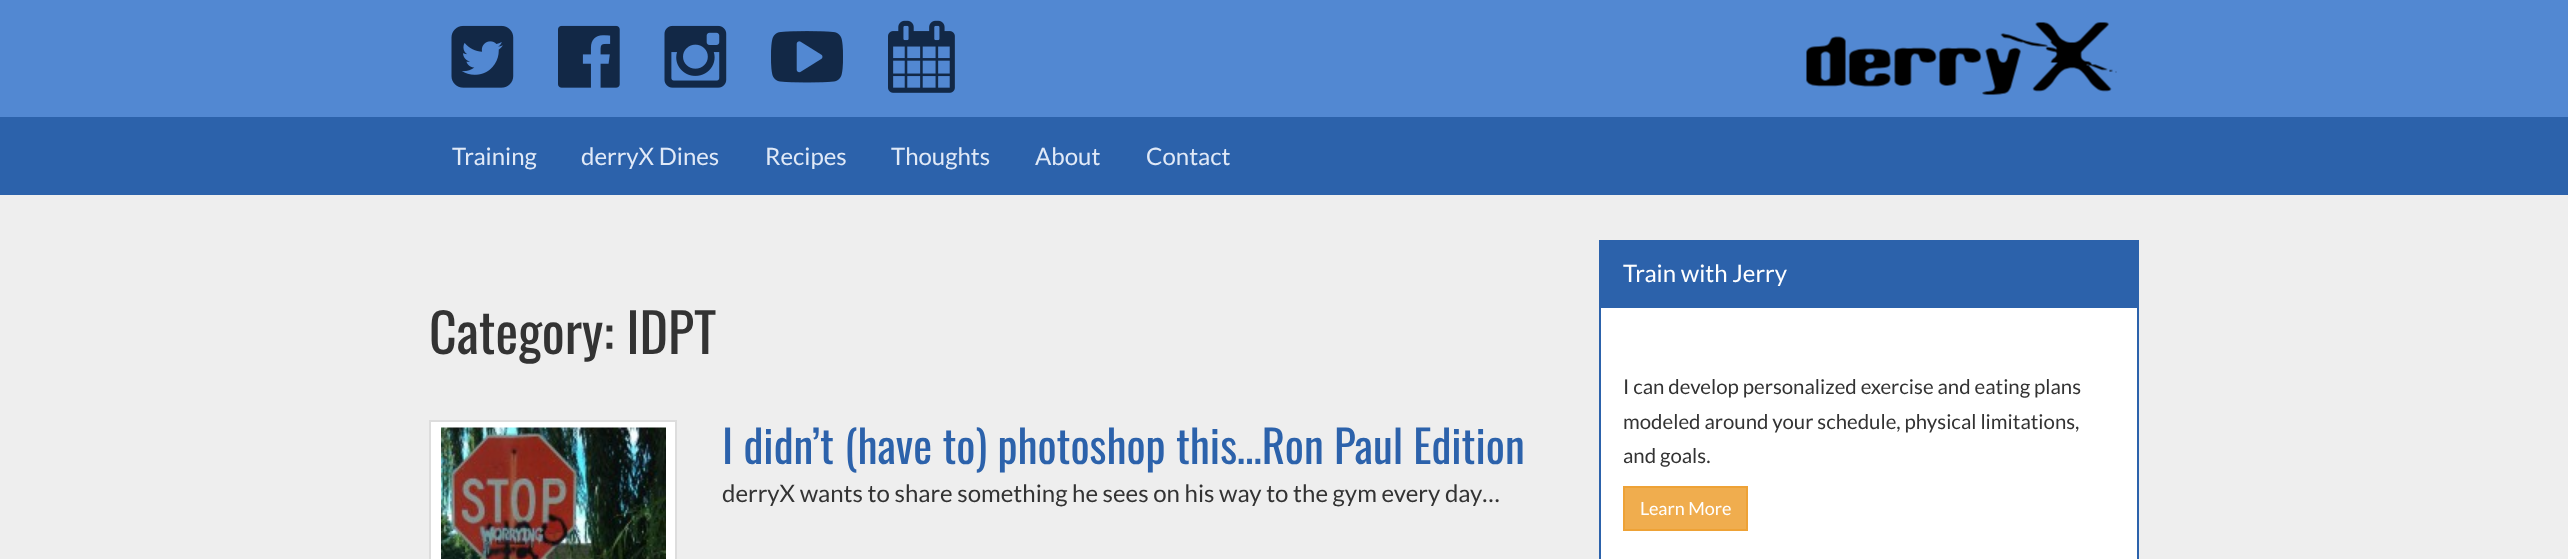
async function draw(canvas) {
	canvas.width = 2568;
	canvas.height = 559;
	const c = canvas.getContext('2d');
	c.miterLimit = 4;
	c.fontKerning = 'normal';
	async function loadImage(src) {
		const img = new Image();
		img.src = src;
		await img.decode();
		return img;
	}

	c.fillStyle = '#eee';
	c.fillRect(0, 0, 2568, 559);
	c.fillStyle = '#5288d2';
	c.fillRect(0, 0, 2568, 117);
	c.drawImage(await loadImage('img1.png'), 451, 25, 63, 63);
	c.drawImage(await loadImage('img2.png'), 558, 25, 62, 63);
	c.drawImage(await loadImage('img3.png'), 664, 25, 63, 63);
	c.drawImage(await loadImage('img4.png'), 771, 31, 72, 52);
	c.drawImage(await loadImage('img5.png'), 888, 20, 67, 73);
	c.drawImage(await loadImage('img6.png'), 1806, 22, 311, 73);
	c.fillStyle = '#2c62ab';
	c.fillRect(0, 117, 2568, 78);
	c.font = '24px Lato';
	c.fillStyle = '#e0e9f7';
	for (const [text, x, y] of [
		['Training', 452, 165],
		['derryX Dines', 581, 165],
		['Recipes', 765, 165],
		['Thoughts', 891, 165],
		['About', 1035, 165],
		['Contact', 1146, 165],
	]) {
		c.fillText(text, x, y);
	}
	c.font = '54px Oswald';
	c.fillStyle = '#333';
	c.fillText('Category: IDPT', 429, 354);
	c.fillStyle = '#fff';
	c.beginPath();
	c.rect(430, 421, 246, 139);
	c.fill();
	c.strokeStyle = '#ddd';
	c.lineWidth = 2;
	c.stroke();
	c.drawImage(await loadImage('img7.png'), 441, 427, 225, 132);
	c.font = '45px Oswald';
	c.fillStyle = '#2c62ab';
	c.fillText('I didn’t (have to) photoshop this…Ron Paul Edition', 722, 464);
	c.font = '24px Lato';
	c.fillStyle = '#333';
	c.fillText('derryX wants to share something he sees on his way to the gym every day…', 722, 502);
	c.fillStyle = '#fff';
	c.fillRect(1601, 308, 536, 251);
	c.strokeStyle = '#2c62ab';
	c.strokeRect(1600, 241, 538, 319);
	c.fillStyle = '#2c62ab';
	c.fillRect(1601, 242, 536, 66);
	c.fillStyle = '#fff';
	c.fillText('Train with Jerry', 1623, 282);
	c.font = '20.4px Lato';
	c.fillStyle = '#333';
	for (const [text, x, y] of [
		['I can develop personalized exercise and eating plans', 1623, 394],
		['modeled around your schedule, physical limitations,', 1623, 429],
		['and goals.', 1623, 463],
	]) {
		c.fillText(text, x, y);
	}
	c.fillStyle = '#f0ad4e';
	c.beginPath();
	c.rect(1624, 487, 123, 43);
	c.fill();
	c.strokeStyle = '#eea236';
	c.stroke();
	c.font = '18px Lato';
	c.fillStyle = '#fff';
	c.fillText('Learn More', 1640, 515);
}

draw(document.querySelector('canvas'));
